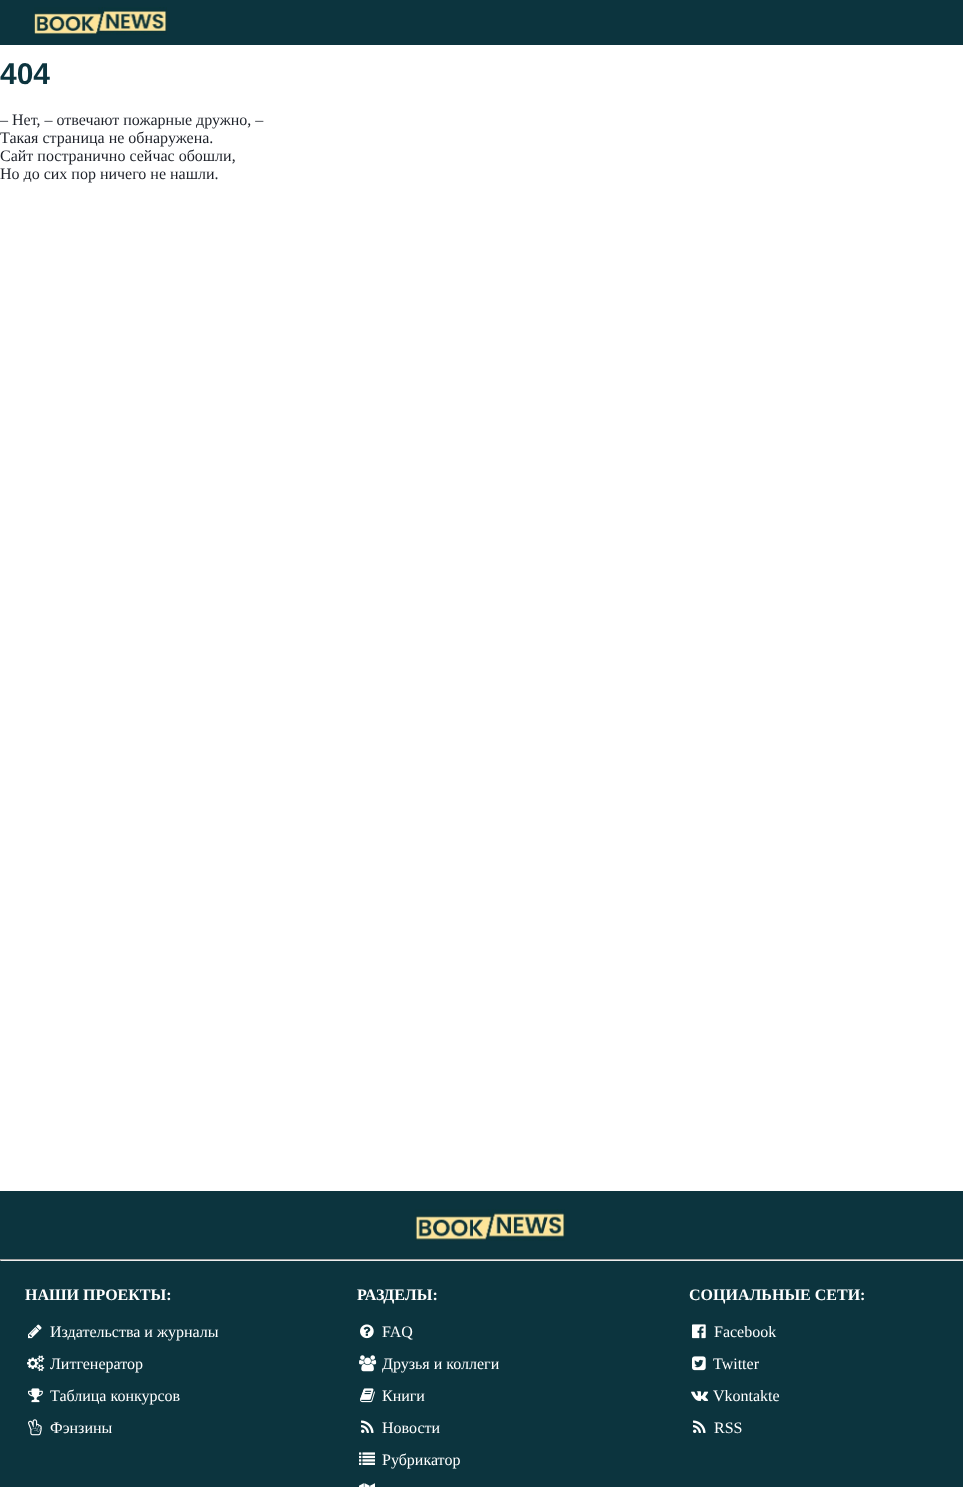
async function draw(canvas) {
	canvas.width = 963;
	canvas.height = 1487;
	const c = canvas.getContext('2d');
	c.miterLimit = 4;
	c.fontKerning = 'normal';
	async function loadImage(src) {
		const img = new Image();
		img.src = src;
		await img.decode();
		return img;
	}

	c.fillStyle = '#fff';
	c.fillRect(0, 0, 963, 1487);
	c.fillStyle = '#0c343e';
	c.fillRect(0, 0, 963, 45);
	c.drawImage(await loadImage('img1.png'), 34, 7, 133, 28);
	c.font = 'bold 30px Liberation Sans';
	c.fillText('404', 0, 84);
	c.font = '16px Liberation Serif';
	c.fillStyle = '#1d2129';
	for (const [text, x, y] of [
		['– Нет, – отвечают пожарные дружно, –', 0, 125],
		['Такая страница не обнаружена.', 0, 143],
		['Сайт постранично сейчас обошли,', 0, 161],
		['Но до сих пор ничего не нашли.', 0, 179],
	]) {
		c.fillText(text, x, y);
	}
	c.fillStyle = '#0c343e';
	c.fillRect(0, 1191, 963, 296);
	c.drawImage(await loadImage('img2.png'), 415, 1209, 150, 32);
	for (const [x, y, w, h, color] of [
		[0, 1259, 963, 1, '#9f9f9f'],
		[0, 1260, 963, 1, '#eee'],
		[0, 1259, 1, 2, '#9f9f9f'],
	]) {
		c.fillStyle = color;
		c.fillRect(x, y, w, h);
	}
	c.font = 'bold 16px Liberation Serif';
	c.fillStyle = '#fff';
	c.fillText('НАШИ ПРОЕКТЫ:', 25, 1300);
	c.drawImage(await loadImage('img3.png'), 28, 1324, 14, 15);
	c.font = '16px Liberation Serif';
	c.fillText('Издательства и журналы', 50, 1337);
	c.drawImage(await loadImage('img4.png'), 27, 1355, 18, 17);
	c.fillText('Литгенератор', 50, 1369);
	c.drawImage(await loadImage('img5.png'), 28, 1388, 15, 15);
	c.fillText('Таблица конкурсов', 50, 1401);
	c.drawImage(await loadImage('img6.png'), 28, 1419, 14, 17);
	c.fillText('Фэнзины', 50, 1433);
	c.font = 'bold 16px Liberation Serif';
	c.fillText('РАЗДЕЛЫ:', 357, 1300);
	c.drawImage(await loadImage('img7.png'), 360, 1324, 14, 15);
	c.font = '16px Liberation Serif';
	c.fillText('FAQ', 382, 1337);
	c.drawImage(await loadImage('img8.png'), 359, 1355, 18, 17);
	c.fillText('Друзья и коллеги', 382, 1369);
	c.drawImage(await loadImage('img9.png'), 360, 1388, 15, 15);
	c.fillText('Книги', 382, 1401);
	c.drawImage(await loadImage('img10.png'), 361, 1420, 13, 13);
	c.fillText('Новости', 382, 1433);
	c.drawImage(await loadImage('img11.png'), 359, 1452, 16, 13);
	c.fillText('Рубрикатор', 382, 1465);
	c.drawImage(await loadImage('img12.png'), 359, 1483, 16, 4);
	c.font = 'bold 16px Liberation Serif';
	c.fillText('СОЦИАЛЬНЫЕ СЕТИ:', 689, 1300);
	c.drawImage(await loadImage('img13.png'), 692, 1324, 14, 15);
	c.font = '16px Liberation Serif';
	c.fillText('Facebook', 714, 1337);
	c.drawImage(await loadImage('img14.png'), 692, 1356, 14, 15);
	c.fillText('Twitter', 713, 1369);
	c.drawImage(await loadImage('img15.png'), 691, 1391, 18, 10);
	c.fillText('Vkontakte', 713, 1401);
	c.drawImage(await loadImage('img10.png'), 693, 1420, 13, 13);
	c.fillText('RSS', 714, 1433);
}

draw(document.querySelector('canvas'));
